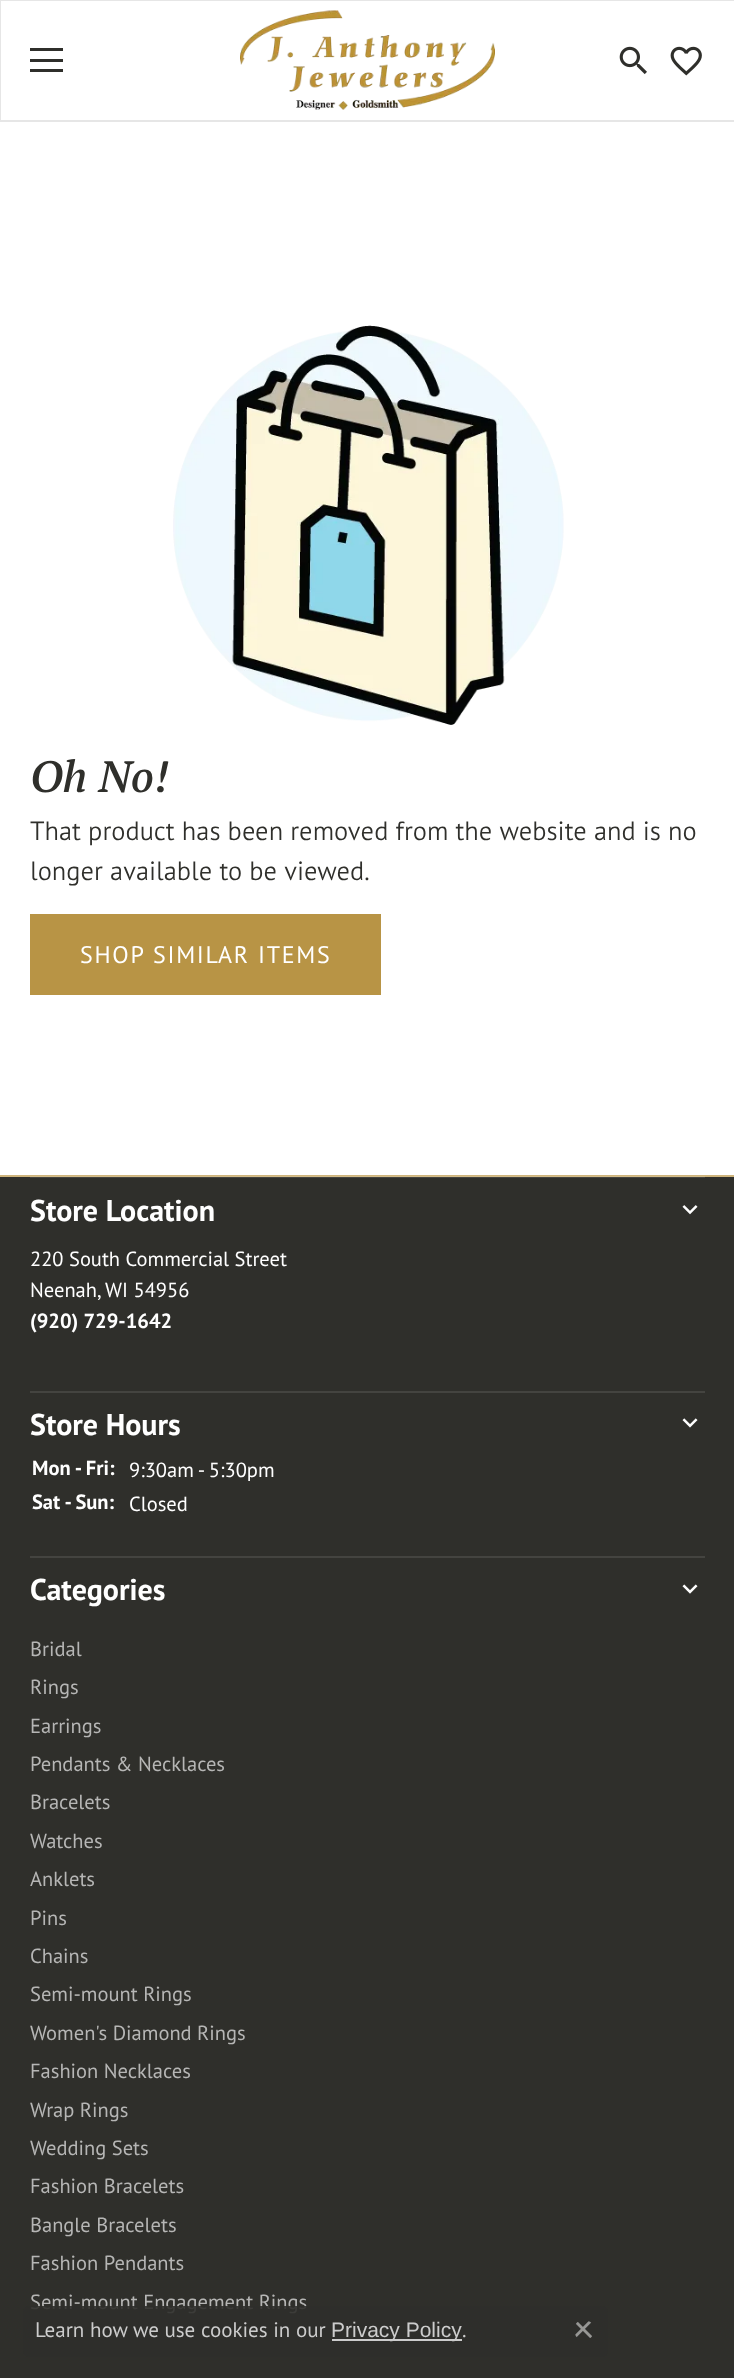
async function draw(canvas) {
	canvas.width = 734;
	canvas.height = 2378;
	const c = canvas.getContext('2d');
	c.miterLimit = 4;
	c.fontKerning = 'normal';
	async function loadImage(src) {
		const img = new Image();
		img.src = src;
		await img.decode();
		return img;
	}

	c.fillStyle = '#fff';
	c.fillRect(0, 0, 734, 2378);
	c.strokeStyle = '#e6e6e6';
	c.lineWidth = 2;
	c.strokeRect(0, 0, 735, 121);
	for (const [x, y, w, h, color] of [
		[30, 48, 33, 3, '#2f2f2b'],
		[30, 59, 33, 3, '#2f2f2b'],
		[30, 69, 33, 3, '#2f2f2b'],
	]) {
		c.fillStyle = color;
		c.fillRect(x, y, w, h);
	}
	c.drawImage(await loadImage('img1.png'), 240, 10, 255, 100);
	c.drawImage(await loadImage('img2.png'), 619, 46, 28, 29);
	c.drawImage(await loadImage('img3.png'), 670, 46, 32, 30);
	c.drawImage(await loadImage('img4.png'), 173, 325, 391, 400);
	c.font = 'italic 600 44px PT Serif';
	c.fillText('Oh No!', 30, 792);
	c.font = '300 26.4px PT Sans';
	c.fillText('That product has been removed from the website and is no', 30, 840);
	c.fillText('longer available to be viewed.', 30, 880);
	c.fillStyle = '#b89445';
	c.fillRect(30, 914, 351, 81);
	c.letterSpacing = '1.75px';
	c.font = '24px PT Sans';
	c.fillStyle = '#fff';
	c.fillText('SHOP SIMILAR ITEMS', 80, 963);
	for (const [x, y, w, h, color] of [
		[0, 1177, 734, 1201, '#2f2f2b'],
		[30, 1177, 675, 1, '#444440'],
		[0, 1175, 734, 2, '#ceb47c'],
		[30, 1176, 675, 1, '#d3bc89'],
	]) {
		c.fillStyle = color;
		c.fillRect(x, y, w, h);
	}
	c.letterSpacing = '0px';
	c.font = 'bold 30px PT Sans';
	c.fillStyle = '#fff';
	c.fillText('Store Location', 30, 1221);
	c.drawImage(await loadImage('img5.png'), 682, 1205, 16, 10);
	c.font = '20.5px PT Sans';
	c.fillText('220 South Commercial Street', 30, 1266);
	c.fillText('Neenah, WI 54956', 30, 1297);
	c.font = 'bold 20.5px PT Sans';
	c.fillText('(920) 729-1642', 30, 1328);
	c.fillStyle = '#444440';
	c.fillRect(30, 1391, 675, 2);
	c.font = 'bold 30px PT Sans';
	c.fillStyle = '#fff';
	c.fillText('Store Hours', 30, 1435);
	c.drawImage(await loadImage('img6.png'), 682, 1418, 16, 10);
	c.font = 'bold 20.5px PT Sans';
	c.fillText('Mon - Fri:', 32, 1475);
	c.font = '20.5px PT Sans';
	c.fillText('9:30am - 5:30pm', 129, 1477);
	c.font = 'bold 20.5px PT Sans';
	c.fillText('Sat - Sun:', 32, 1509);
	c.font = '20.5px PT Sans';
	c.fillText('Closed', 129, 1511);
	c.fillStyle = '#444440';
	c.fillRect(30, 1556, 675, 2);
	c.font = 'bold 30px PT Sans';
	c.fillStyle = '#fff';
	c.fillText('Categories', 30, 1600);
	c.drawImage(await loadImage('img7.png'), 682, 1584, 16, 10);
	c.font = '20.5px PT Sans';
	c.fillStyle = '#b6b6b5';
	for (const [text, x, y] of [
		['Bridal', 30, 1656],
		['Rings', 30, 1694],
		['Earrings', 30, 1733],
		['Pendants & Necklaces', 30, 1771],
		['Bracelets', 30, 1809],
		['Watches', 30, 1848],
		['Anklets', 30, 1886],
		['Pins', 30, 1925],
		['Chains', 30, 1963],
		['Semi-mount Rings', 30, 2001],
		['Women\'s Diamond Rings', 30, 2040],
		['Fashion Necklaces', 30, 2078],
		['Wrap Rings', 30, 2117],
		['Wedding Sets', 30, 2155],
		['Fashion Bracelets', 30, 2193],
		['Bangle Bracelets', 30, 2232],
		['Fashion Pendants', 30, 2270],
		['Semi-mount Engagement Rings', 30, 2309],
	]) {
		c.fillText(text, x, y);
	}
	c.fillStyle = '#2f2f2be6';
	c.beginPath();
	c.roundRect(23, 2306, 585, 51, 6);
	c.fill();
	c.font = '21px PT Sans';
	c.fillStyle = '#ccc';
	c.fillText('Learn how we use cookies in our', 35, 2337);
	c.fillRect(332, 2339, 130, 2);
	c.font = '21px Liberation Sans';
	c.fillText('Privacy Policy', 331, 2337);
	c.font = '21px PT Sans';
	c.fillText('.', 462, 2337);
	c.drawImage(await loadImage('img8.png'), 575, 2321, 17, 17);
}

draw(document.querySelector('canvas'));
